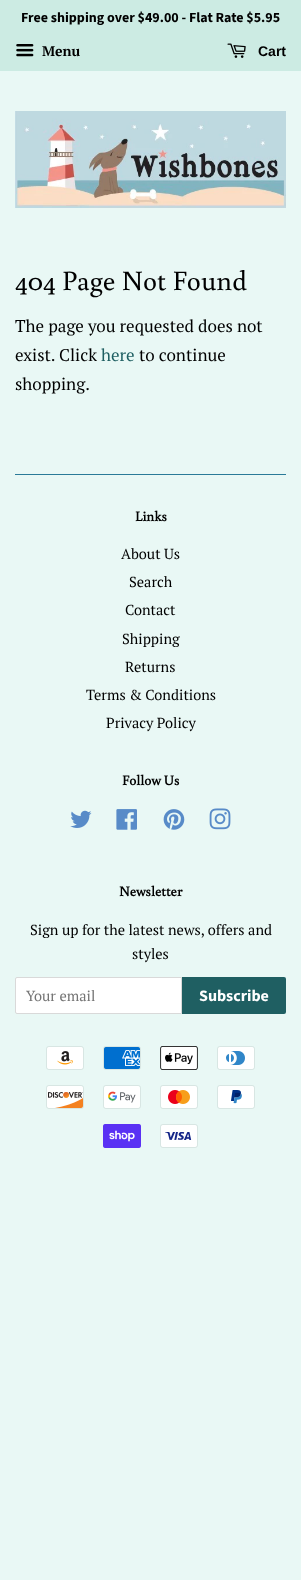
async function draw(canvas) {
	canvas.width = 301;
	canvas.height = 1580;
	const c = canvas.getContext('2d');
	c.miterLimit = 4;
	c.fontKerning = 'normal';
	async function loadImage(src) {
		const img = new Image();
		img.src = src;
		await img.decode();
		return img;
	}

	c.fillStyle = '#e9f8f5';
	c.fillRect(0, 0, 301, 1580);
	c.fillStyle = '#ccebe3';
	c.fillRect(0, 0, 301, 71);
	c.font = 'bold 14px Source Sans Pro';
	c.fillStyle = '#000';
	c.fillText('Free shipping over $49.00 - Flat Rate $5.95', 21, 22);
	c.drawImage(await loadImage('img1.png'), 16, 44, 18, 13);
	c.font = 'bold 14px PT Serif';
	c.fillText('Menu', 42, 56);
	c.drawImage(await loadImage('img2.png'), 227, 43, 19, 15);
	c.font = 'bold 14px Liberation Sans';
	c.fillText('Cart', 258, 56);
	c.drawImage(await loadImage('img3.png'), 15, 111, 271, 97);
	c.font = '28px Buenard';
	c.fillText('404 Page Not Found', 15, 290);
	c.font = '17px PT Serif';
	c.fillText('The page you requested does not', 15, 332);
	c.fillText('exist. Click', 15, 361);
	c.fillStyle = '#1f5f62';
	c.fillText('here', 101, 361);
	c.fillStyle = '#000';
	c.fillText('to continue', 139, 361);
	c.fillText('shopping.', 15, 390);
	c.fillStyle = '#2a7a98';
	c.fillRect(15, 474, 271, 1);
	c.font = 'bold 14px Buenard';
	c.fillStyle = '#000';
	c.fillText('Links', 135, 521);
	c.font = '14.5px PT Serif';
	for (const [text, x, y] of [
		['About Us', 121, 559],
		['Search', 129, 587],
		['Contact', 125, 615],
		['Shipping', 122, 644],
		['Returns', 125, 672],
		['Terms & Conditions', 86, 700],
		['Privacy Policy', 106, 728],
	]) {
		c.fillText(text, x, y);
	}
	c.font = 'bold 14px Buenard';
	c.fillText('Follow Us', 122, 785);
	c.drawImage(await loadImage('img4.png'), 70, 810, 22, 18);
	c.drawImage(await loadImage('img5.png'), 116, 809, 21, 21);
	c.drawImage(await loadImage('img6.png'), 163, 809, 22, 21);
	c.drawImage(await loadImage('img7.png'), 209, 808, 22, 22);
	c.fillText('Newsletter', 119, 896);
	c.font = '14.5px PT Serif';
	c.fillText('Sign up for the latest news, offers and', 30, 935);
	c.fillText('styles', 132, 959);
	c.fillStyle = '#fff';
	c.beginPath();
	c.roundRect(15.5, 977.5, 166, 36, [1.5, 0, 0, 1.5]);
	c.fill();
	c.strokeStyle = '#d9d9d9';
	c.stroke();
	c.fillStyle = '#757575';
	c.fillText('Your email', 26, 1001);
	c.fillStyle = '#1f5f62';
	c.beginPath();
	c.roundRect(182, 977, 104, 37, [0, 2, 2, 0]);
	c.fill();
	c.font = 'bold 16px Source Sans Pro';
	c.fillStyle = '#fff';
	c.fillText('Subscribe', 199, 1001);
	c.drawImage(await loadImage('img8.png'), 46, 1046, 38, 24);
	c.drawImage(await loadImage('img9.png'), 103, 1046, 38, 24);
	c.drawImage(await loadImage('img10.png'), 160, 1046, 38, 24);
	c.drawImage(await loadImage('img11.png'), 217, 1046, 38, 24);
	c.drawImage(await loadImage('img12.png'), 46, 1085, 38, 24);
	c.drawImage(await loadImage('img13.png'), 103, 1085, 38, 24);
	c.drawImage(await loadImage('img14.png'), 160, 1085, 38, 24);
	c.drawImage(await loadImage('img15.png'), 217, 1085, 38, 24);
	c.drawImage(await loadImage('img16.png'), 103, 1124, 38, 24);
	c.drawImage(await loadImage('img17.png'), 160, 1124, 38, 24);
}

draw(document.querySelector('canvas'));
